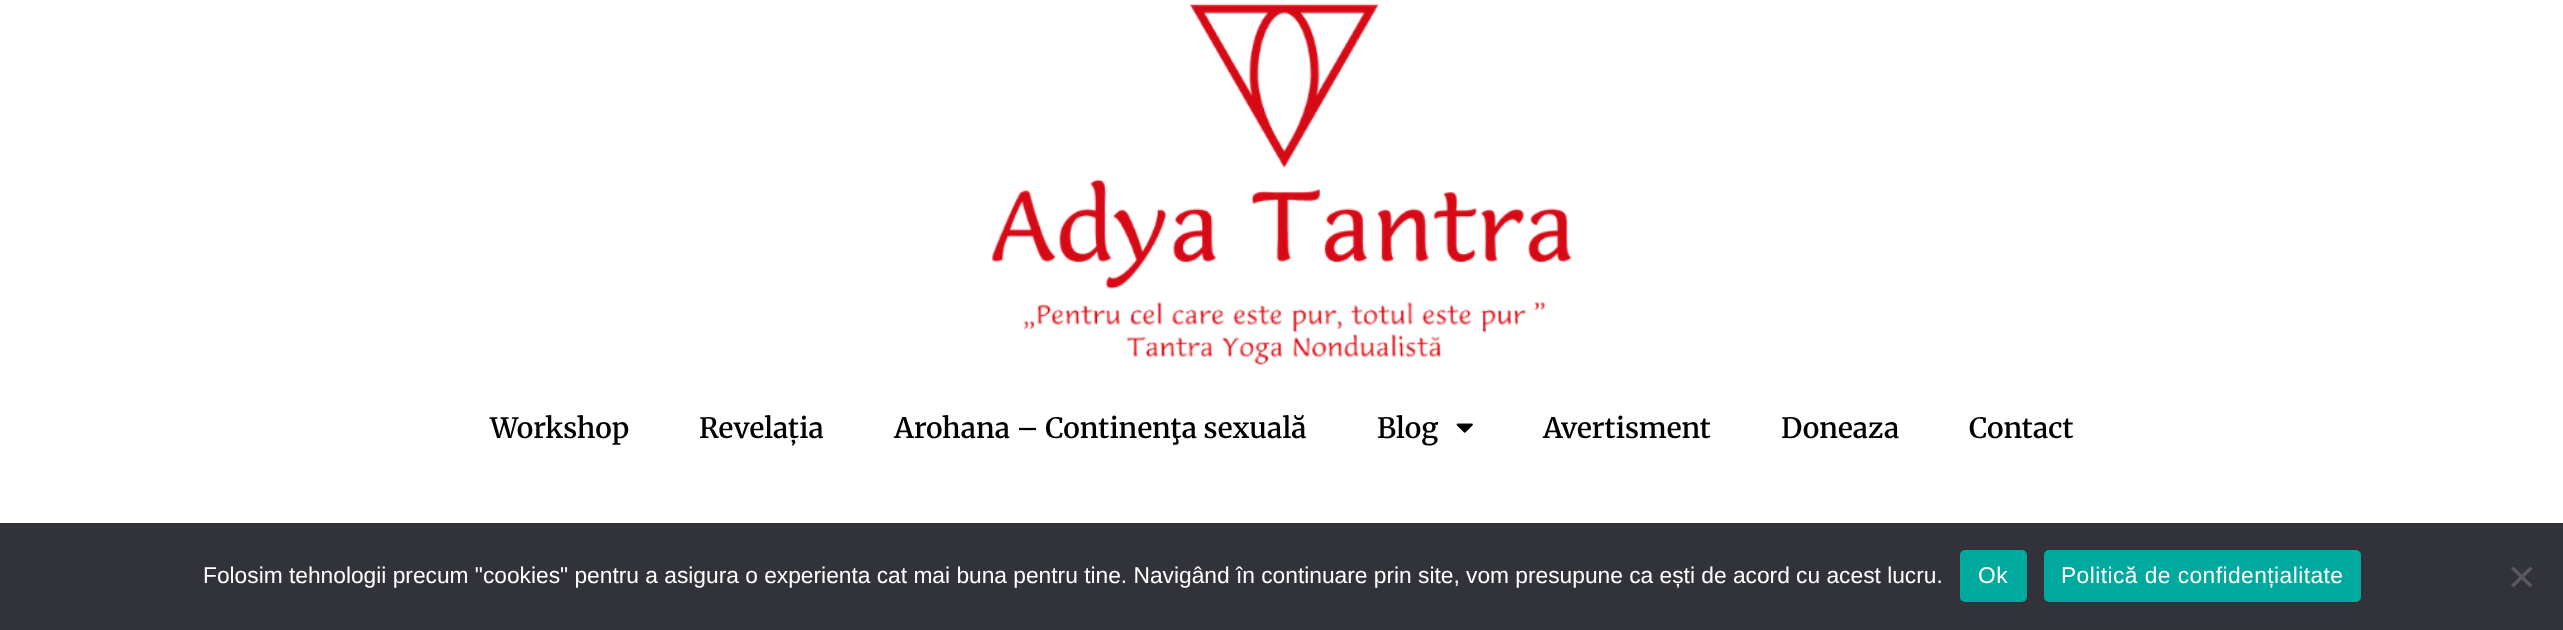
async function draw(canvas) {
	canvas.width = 2563;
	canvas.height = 630;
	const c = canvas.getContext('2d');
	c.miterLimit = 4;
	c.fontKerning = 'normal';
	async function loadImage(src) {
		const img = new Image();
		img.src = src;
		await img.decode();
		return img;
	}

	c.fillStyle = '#fff';
	c.fillRect(0, 0, 2563, 630);
	c.drawImage(await loadImage('img1.png'), 991, 3, 581, 362);
	c.font = '600 28px Merriweather';
	c.fillStyle = '#000';
	for (const [text, x, y] of [
		['Workshop', 490, 438],
		['Revelația', 699, 438],
		['Arohana – Continenţa sexuală', 894, 438],
		['Blog', 1377, 438],
	]) {
		c.fillText(text, x, y);
	}
	c.drawImage(await loadImage('img2.png'), 1456, 423, 17, 10);
	for (const [text, x, y] of [
		['Avertisment', 1543, 438],
		['Doneaza', 1781, 438],
		['Contact', 1969, 438],
	]) {
		c.fillText(text, x, y);
	}
	c.fillStyle = '#32323a';
	c.fillRect(0, 523, 2563, 107);
	c.font = '22.75px Liberation Sans';
	c.fillStyle = '#fff';
	c.fillText('Folosim tehnologii precum "cookies" pentru a asigura o experienta cat mai buna pentru tine. Navigând în continuare prin site, vom presupune ca ești de acord cu acest lucru.', 203, 583);
	c.fillStyle = '#00a99d';
	c.beginPath();
	c.roundRect(1960, 550, 67, 52, 5);
	c.fill();
	c.letterSpacing = '0.45px';
	c.fillStyle = '#fff';
	c.fillText('Ok', 1978, 583);
	c.fillStyle = '#00a99d';
	c.beginPath();
	c.roundRect(2044, 550, 317, 52, 5);
	c.fill();
	c.fillStyle = '#fff';
	c.fillText('Politică de confidențialitate', 2061, 583);
	c.fillStyle = '#59595d';
	c.beginPath();
	c.moveTo(2530, 566.5);
	c.lineTo(2532.5, 569);
	c.lineTo(2513.5, 587.5);
	c.lineTo(2511, 585);
	c.closePath();
	c.fill();
	c.beginPath();
	c.moveTo(2511, 569);
	c.lineTo(2513.5, 566.5);
	c.lineTo(2532.5, 585);
	c.lineTo(2530, 587.5);
	c.closePath();
	c.fill();
}

draw(document.querySelector('canvas'));
